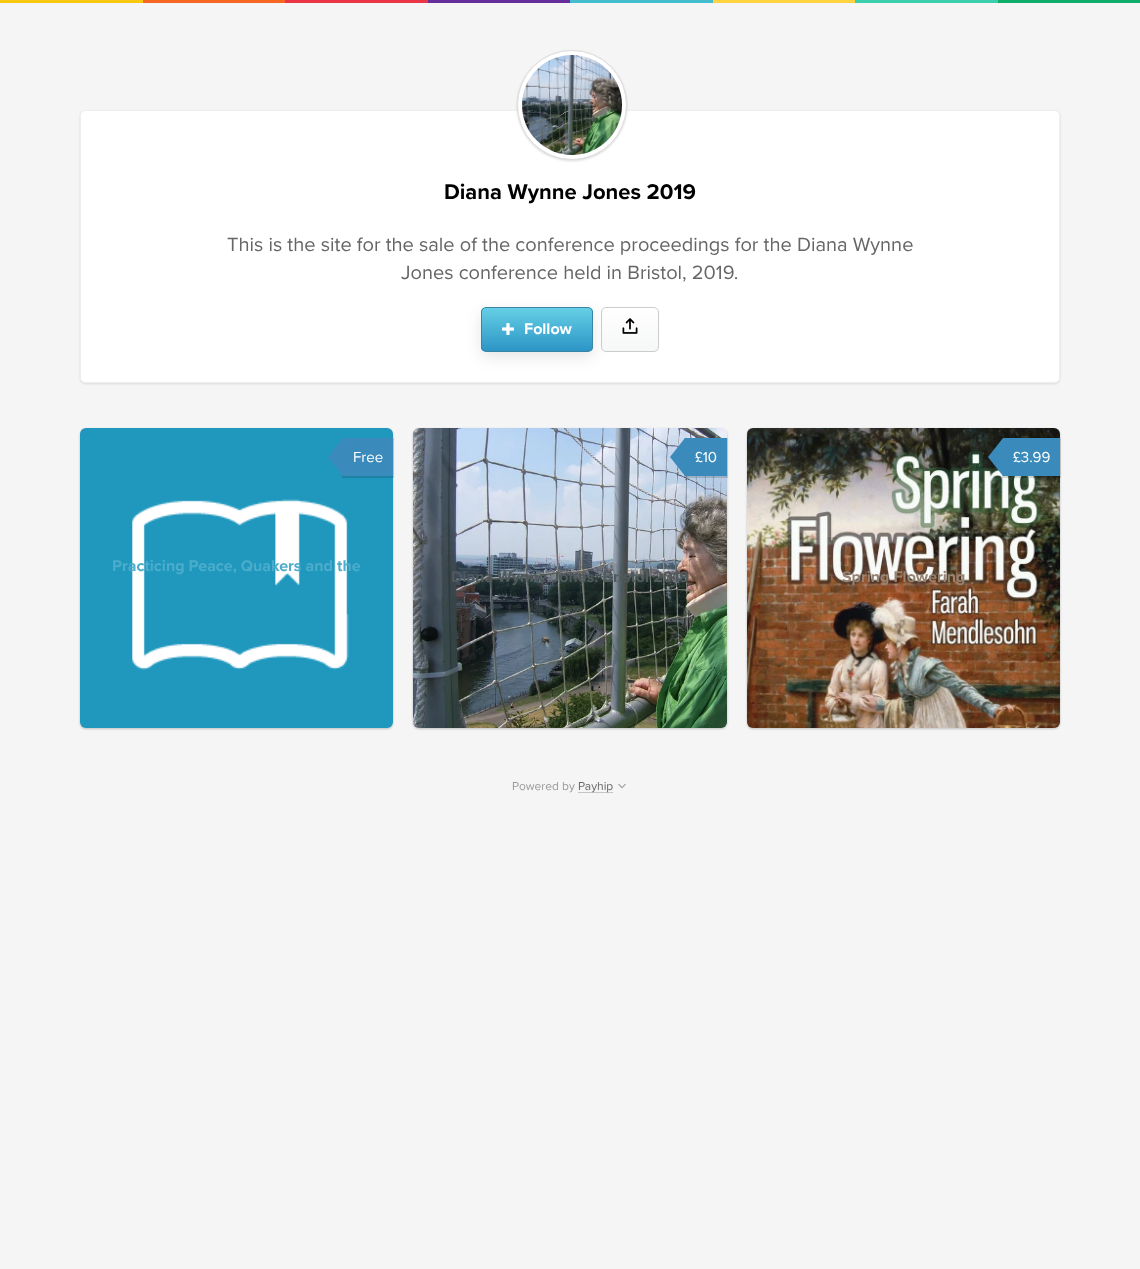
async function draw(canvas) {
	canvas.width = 1140;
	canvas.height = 1269;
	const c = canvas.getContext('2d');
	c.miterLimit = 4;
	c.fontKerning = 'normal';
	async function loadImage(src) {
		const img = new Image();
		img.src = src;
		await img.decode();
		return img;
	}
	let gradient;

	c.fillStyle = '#f5f5f5';
	c.fillRect(0, 0, 1140, 1269);
	for (const [x, y, w, h, color] of [
		[0, 0, 143, 3, '#f9c80e'],
		[143, 0, 142, 3, '#f86624'],
		[285, 0, 143, 3, '#ea3546'],
		[428, 0, 142, 3, '#662e9b'],
		[570, 0, 143, 3, '#43bccd'],
		[713, 0, 142, 3, '#ffd23f'],
		[855, 0, 143, 3, '#3bceac'],
		[998, 0, 142, 3, '#0ead69'],
	]) {
		c.fillStyle = color;
		c.fillRect(x, y, w, h);
	}
	c.fillStyle = '#0000001a';
	c.filter = 'blur(1px)';
	c.beginPath();
	c.roundRect(80, 111, 980, 273, 5);
	c.fill();
	c.filter = 'none';
	c.fillStyle = '#fff';
	c.beginPath();
	c.roundRect(80.5, 110.5, 979, 272, 4.5);
	c.fill();
	c.strokeStyle = '#eee';
	c.stroke();
	c.fillStyle = '#00000026';
	c.filter = 'blur(1px)';
	c.beginPath();
	c.roundRect(517, 51, 110, 110, 55);
	c.fill();
	c.filter = 'none';
	c.fillStyle = '#fff';
	c.beginPath();
	c.arc(572, 105, 54.5, 0, 2 * Math.PI);
	c.fill();
	c.strokeStyle = '#ddd';
	c.stroke();
	c.drawImage(await loadImage('img1.png'), 522, 55, 100, 100);
	c.font = 'bold 22px Proxima Nova';
	c.fillStyle = '#000';
	c.fillText('Diana Wynne Jones 2019', 444, 199);
	c.font = '20px Proxima Nova';
	c.fillStyle = '#666';
	c.fillText('This is the site for the sale of the conference proceedings for the Diana Wynne', 227, 251);
	c.fillText('Jones conference held in Bristol, 2019.', 401, 279);
	c.fillStyle = '#0000001a';
	c.filter = 'blur(7.5px)';
	c.beginPath();
	c.roundRect(481, 312, 112, 45, 5);
	c.fill();
	c.filter = 'none';
	c.save();
	c.beginPath();
	c.roundRect(481, 307, 112, 45, 5);
	c.clip();
	gradient = c.createLinearGradient(482, 308, 482, 351);
	gradient.addColorStop(0, '#64cfe5');
	gradient.addColorStop(1, '#2d95c6');
	c.fillStyle = gradient;
	c.fillRect(481, 308, 112, 43);
	c.restore();
	c.beginPath();
	c.roundRect(481.5, 307.5, 111, 44, 4.5);
	c.strokeStyle = '#3784a4';
	c.stroke();
	c.drawImage(await loadImage('img2.png'), 502, 323, 12, 12);
	c.font = 'bold 16px Proxima Nova';
	c.fillStyle = '#fff';
	c.fillText('Follow', 524, 334);
	c.save();
	c.beginPath();
	c.roundRect(601, 307, 58, 45, 5);
	c.clip();
	gradient = c.createLinearGradient(602, 308, 602, 351);
	gradient.addColorStop(0, '#fff');
	gradient.addColorStop(1, '#f6f7f7');
	c.fillStyle = gradient;
	c.fillRect(601, 308, 58, 43);
	c.restore();
	c.beginPath();
	c.roundRect(601.5, 307.5, 57, 44, 4.5);
	c.strokeStyle = '#ccc';
	c.stroke();
	c.drawImage(await loadImage('img3.png'), 622, 318, 16, 16);
	c.fillStyle = '#00000038';
	c.filter = 'blur(1px)';
	c.beginPath();
	c.roundRect(80, 429, 313, 300, 6);
	c.fill();
	c.filter = 'none';
	c.drawImage(await loadImage('img4.png'), 80, 428, 313, 300);
	c.fillStyle = '#00000024';
	c.filter = 'blur(0.5px)';
	c.beginPath();
	c.rect(342, 438, 52, 40);
	c.fill();
	c.filter = 'none';
	c.fillStyle = '#3a8bbb';
	c.fillRect(343, 438, 50, 38);
	c.beginPath();
	c.moveTo(343, 438);
	c.lineTo(343, 476);
	c.lineTo(328, 457);
	c.closePath();
	c.fill();
	c.font = '15px Proxima Nova';
	c.fillStyle = '#fff';
	c.fillText('Free', 353, 462);
	c.font = 'bold 16px Proxima Nova';
	c.fillStyle = '#4caccb';
	c.fillText('Practicing Peace, Quakers and the', 112, 571);
	c.fillStyle = '#00000038';
	c.filter = 'blur(1px)';
	c.beginPath();
	c.roundRect(413, 429, 314, 300, 6);
	c.fill();
	c.filter = 'none';
	c.drawImage(await loadImage('img5.png'), 413, 428, 314, 300);
	c.fillStyle = '#00000024';
	c.filter = 'blur(0.5px)';
	c.beginPath();
	c.rect(684, 438, 44, 40);
	c.fill();
	c.filter = 'none';
	c.fillStyle = '#3a8bbb';
	c.fillRect(685, 438, 42, 38);
	c.beginPath();
	c.moveTo(685, 438);
	c.lineTo(685, 476);
	c.lineTo(670, 457);
	c.closePath();
	c.fill();
	c.font = '15px Proxima Nova';
	c.fillStyle = '#fff';
	c.fillText('£10', 695, 462);
	c.font = 'bold 16px Proxima Nova';
	c.fillStyle = '#50595c';
	c.fillText('Diana Wynne Jones: Bristol 2019', 451, 582);
	c.fillStyle = '#00000038';
	c.filter = 'blur(1px)';
	c.beginPath();
	c.roundRect(747, 429, 313, 300, 6);
	c.fill();
	c.filter = 'none';
	c.drawImage(await loadImage('img6.png'), 747, 428, 313, 300);
	c.fillStyle = '#00000024';
	c.filter = 'blur(0.5px)';
	c.beginPath();
	c.rect(1002, 438, 59, 40);
	c.fill();
	c.filter = 'none';
	c.fillStyle = '#3a8bbb';
	c.fillRect(1003, 438, 57, 38);
	c.beginPath();
	c.moveTo(1003, 438);
	c.lineTo(1003, 476);
	c.lineTo(988, 457);
	c.closePath();
	c.fill();
	c.font = '15px Proxima Nova';
	c.fillStyle = '#fff';
	c.fillText('£3.99', 1013, 462);
	c.font = 'bold 16px Proxima Nova';
	c.fillStyle = '#978373';
	c.fillText('Spring Flowering', 842, 582);
	c.font = '12px Proxima Nova';
	c.fillStyle = '#999';
	c.fillText('Powered by', 512, 790);
	c.fillStyle = '#c3c6c8';
	c.fillRect(578, 792, 35, 1);
	c.fillStyle = '#666';
	c.fillText('Payhip', 578, 790);
	c.drawImage(await loadImage('img7.png'), 618, 783, 8, 6);
}

draw(document.querySelector('canvas'));
